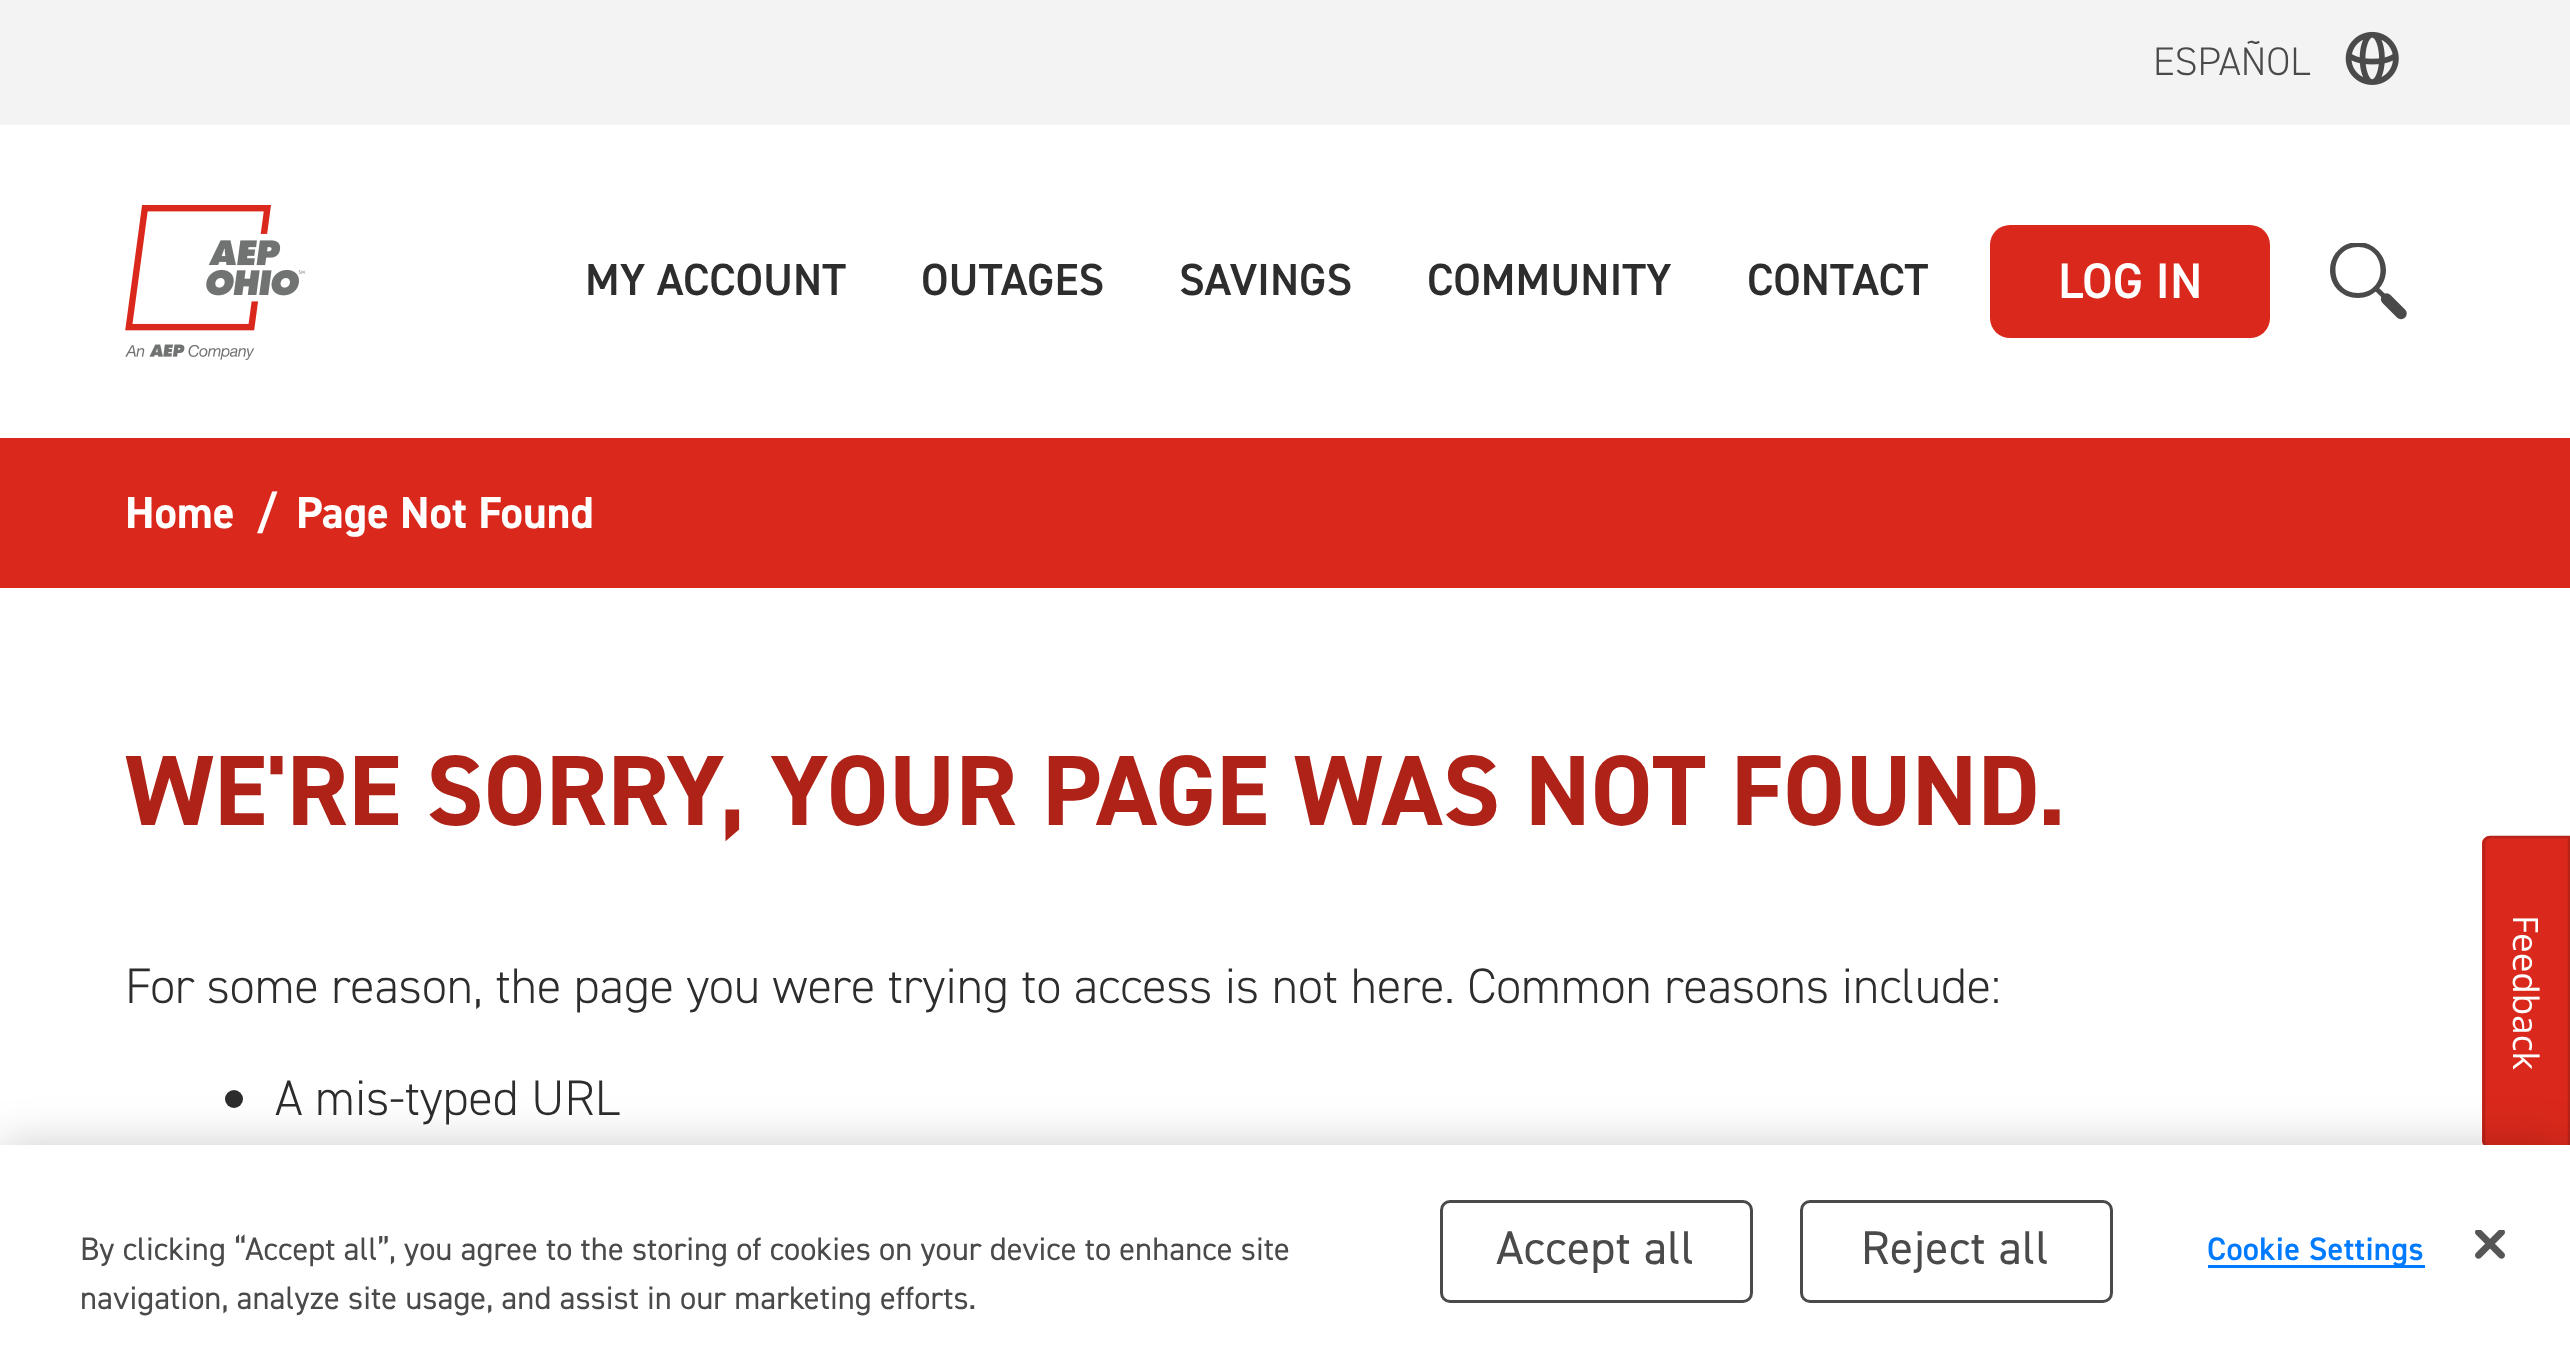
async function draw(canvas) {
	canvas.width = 2570;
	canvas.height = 1354;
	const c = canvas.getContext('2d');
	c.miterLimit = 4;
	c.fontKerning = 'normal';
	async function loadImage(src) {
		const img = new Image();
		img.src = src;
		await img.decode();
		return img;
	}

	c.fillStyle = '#fff';
	c.fillRect(0, 0, 2570, 1354);
	c.fillStyle = '#f3f3f3';
	c.fillRect(0, 0, 2570, 125);
	c.drawImage(await loadImage('img1.png'), 2345, 31, 54, 54);
	c.font = '300 40px "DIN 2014"';
	c.fillStyle = '#4a4a4a';
	c.fillText('ESPAÑOL', 2153, 75);
	c.drawImage(await loadImage('img2.png'), 125, 205, 180, 155);
	c.font = '600 45px "DIN 2014"';
	c.fillStyle = '#2d2d2d';
	for (const [text, x, y] of [
		['MY ACCOUNT', 585, 295],
		['OUTAGES', 921, 295],
		['SAVINGS', 1179, 295],
		['COMMUNITY', 1427, 295],
		['CONTACT', 1747, 295],
	]) {
		c.fillText(text, x, y);
	}
	c.fillStyle = '#da291c';
	c.beginPath();
	c.roundRect(1990, 225, 280, 113, 20);
	c.fill();
	c.font = '600 50px "DIN 2014"';
	c.fillStyle = '#fff';
	c.fillText('LOG IN', 2058, 298);
	c.save();
	c.beginPath();
	c.rect(2330, 243, 80, 80);
	c.clip();
	c.fillStyle = '#4a4a4a';
	c.beginPath();
	c.moveTo(2358, 242);
	c.bezierCurveTo(2373, 242, 2386, 255, 2386, 270);
	c.bezierCurveTo(2386, 286, 2373, 298, 2358, 298);
	c.bezierCurveTo(2342, 298, 2330, 286, 2330, 270);
	c.bezierCurveTo(2330, 255, 2342, 242, 2358, 242);
	c.moveTo(2358, 247);
	c.bezierCurveTo(2328, 247, 2328, 293, 2358, 293);
	c.bezierCurveTo(2388, 293, 2388, 247, 2358, 247);
	c.fill('evenodd');
	c.restore();
	c.beginPath();
	c.moveTo(2376, 288.5);
	c.lineTo(2393.5, 305.5);
	c.strokeStyle = '#4a4a4a';
	c.lineWidth = 4.9;
	c.stroke();
	c.beginPath();
	c.moveTo(2386.5, 299);
	c.lineTo(2401, 313.5);
	c.lineWidth = 11.4;
	c.lineCap = 'round';
	c.stroke();
	c.fillStyle = '#da291c';
	c.fillRect(0, 438, 2570, 150);
	c.font = 'bold 45px "DIN 2014"';
	c.fillStyle = '#fff';
	for (const [text, x, y] of [
		['Home', 125, 528],
		['/', 255, 528],
		['Page Not Found', 296, 528],
	]) {
		c.fillText(text, x, y);
	}
	c.font = 'bold 100px "DIN 2014"';
	c.fillStyle = '#af2218';
	c.fillText('WE\'RE SORRY, YOUR PAGE WAS NOT FOUND.', 125, 825);
	c.font = '300 50px "DIN 2014"';
	c.fillStyle = '#2d2d2d';
	c.fillText('For some reason, the page you were trying to access is not here. Common reasons include:', 125, 1003);
	c.beginPath();
	c.arc(234, 1099, 9, 0, 2 * Math.PI);
	c.fill();
	c.fillText('A mis-typed URL', 275, 1115);
	c.fillStyle = '#da291c';
	c.beginPath();
	c.moveTo(2570, 836);
	c.lineTo(2570, 1148);
	c.lineTo(2490, 1148);
	c.bezierCurveTo(2486, 1148, 2482, 1145, 2482, 1141);
	c.lineTo(2482, 843);
	c.bezierCurveTo(2482, 839, 2486, 836, 2490, 836);
	c.closePath();
	c.fill();
	c.beginPath();
	c.moveTo(2569, 837);
	c.lineTo(2569, 1147);
	c.lineTo(2490, 1147);
	c.bezierCurveTo(2486.5, 1147, 2484, 1144.5, 2484, 1141);
	c.lineTo(2484, 843.5);
	c.bezierCurveTo(2484, 840, 2486.5, 837, 2490, 837);
	c.closePath();
	c.strokeStyle = '#b82318';
	c.lineWidth = 2.5;
	c.lineCap = 'butt';
	c.stroke();
	c.font = '35px Open Sans';
	c.fillStyle = '#fff';
	c.save();
	c.translate(2513, 915);
	c.rotate(90 * Math.PI / 180);
	c.fillText('Feedback', 0, 0);
	c.restore();
	c.fillStyle = '#00000033';
	c.filter = 'blur(22.5px)';
	c.beginPath();
	c.rect(0, 1145, 2570, 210);
	c.fill();
	c.filter = 'none';
	c.fillStyle = '#fff';
	c.fillRect(0, 1145, 2570, 209);
	c.font = '32.5px "DIN 2014"';
	c.fillStyle = '#4a4a4a';
	c.fillText('By clicking “Accept all”, you agree to the storing of cookies on your device to enhance site', 80, 1260);
	c.fillText('navigation, analyze site usage, and assist in our marketing efforts.', 80, 1309);
	c.beginPath();
	c.roundRect(1441.5, 1201.5, 310, 100, 8.5);
	c.strokeStyle = '#4a4a4a';
	c.lineWidth = 3;
	c.stroke();
	c.letterSpacing = '0.5px';
	c.font = '47.5px "DIN 2014"';
	c.fillText('Accept all', 1496, 1264);
	c.beginPath();
	c.roundRect(1801.5, 1201.5, 310, 100, 8.5);
	c.stroke();
	c.fillText('Reject all', 1861, 1264);
	c.fillStyle = '#007bff';
	c.fillRect(2208, 1265, 217, 3);
	c.letterSpacing = '0.3px';
	c.font = '600 32.5px "DIN 2014"';
	c.fillText('Cookie Settings', 2207, 1260);
	c.drawImage(await loadImage('img3.png'), 2475, 1230, 30, 29);
}

draw(document.querySelector('canvas'));
